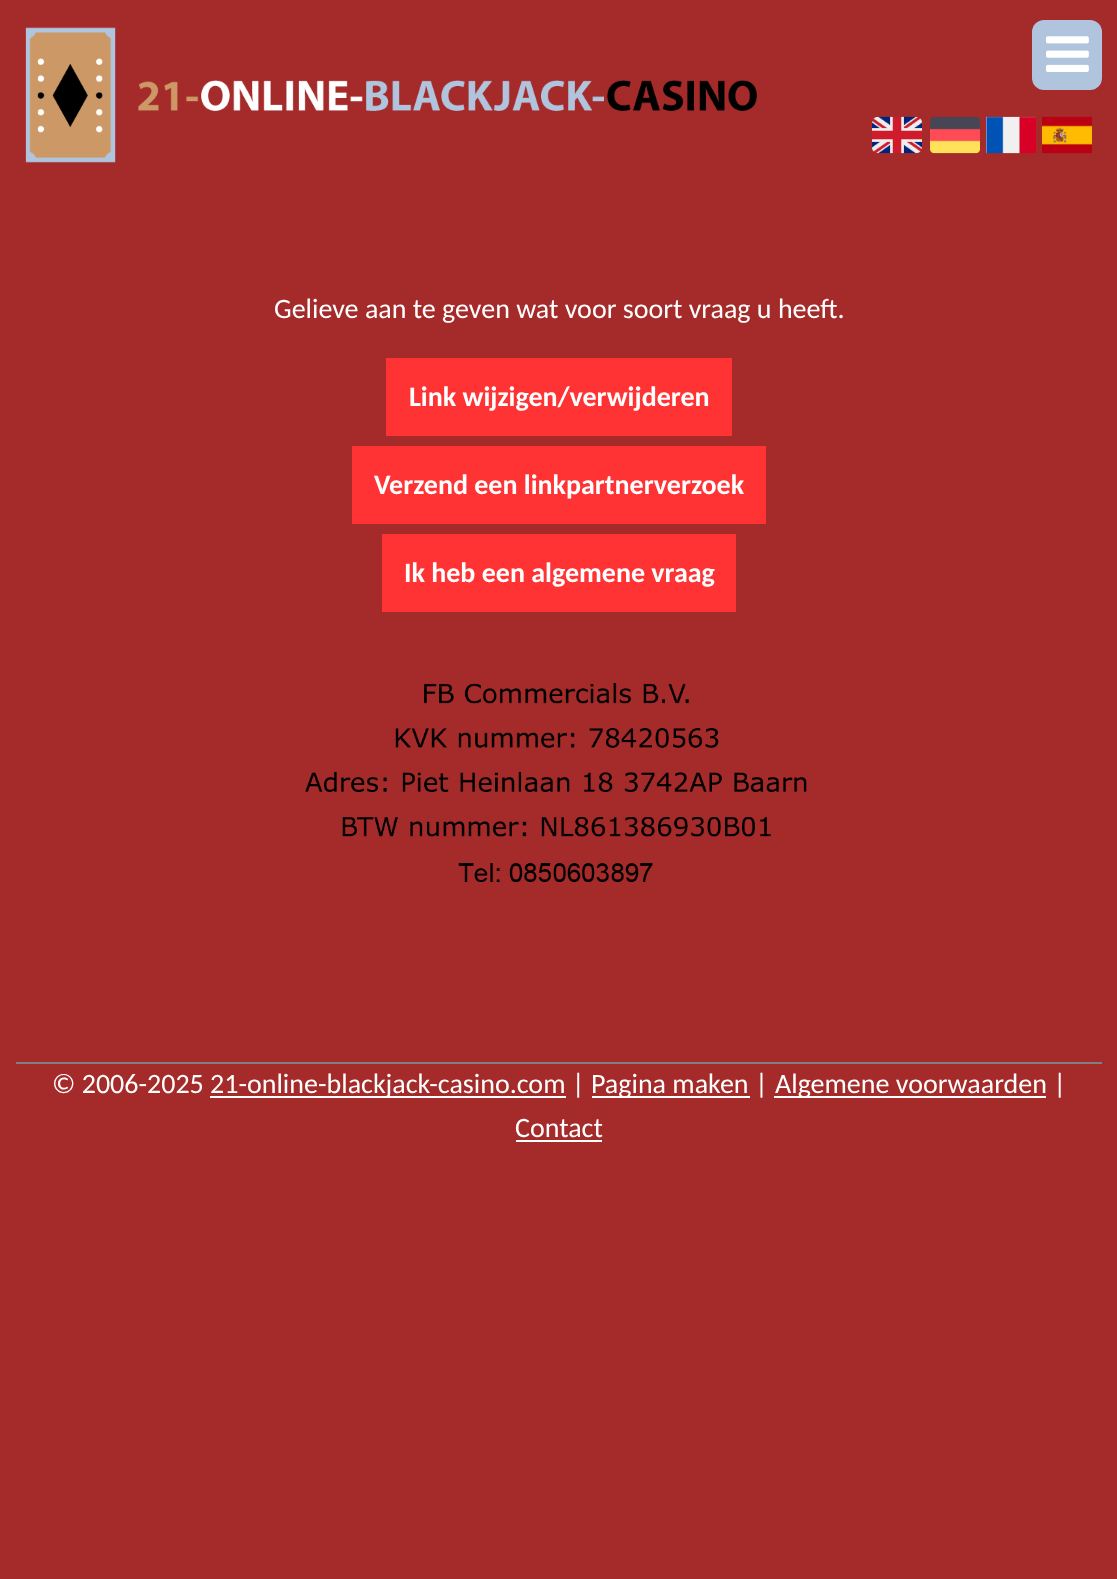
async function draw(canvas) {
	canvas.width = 1117;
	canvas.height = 1579;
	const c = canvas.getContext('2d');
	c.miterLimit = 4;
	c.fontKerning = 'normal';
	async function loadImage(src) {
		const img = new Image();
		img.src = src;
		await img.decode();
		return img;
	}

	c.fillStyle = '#a52a2a';
	c.fillRect(0, 0, 1117, 1579);
	c.drawImage(await loadImage('img1.png'), 25, 27, 732, 136);
	c.fillStyle = '#b0c4de';
	c.beginPath();
	c.roundRect(1032, 20, 70, 70, 12);
	c.fill();
	c.drawImage(await loadImage('img2.png'), 1046, 36, 43, 36);
	c.drawImage(await loadImage('img3.png'), 872, 116, 50, 38);
	c.drawImage(await loadImage('img4.png'), 930, 116, 50, 38);
	c.drawImage(await loadImage('img5.png'), 986, 116, 50, 38);
	c.drawImage(await loadImage('img6.png'), 1042, 116, 50, 38);
	c.font = '28px Carlito';
	c.fillStyle = '#fff';
	c.fillText('Gelieve aan te geven wat voor soort vraag u heeft.', 274, 318);
	c.fillStyle = '#ff3334';
	c.fillRect(386, 358, 346, 78);
	c.font = 'bold 28px Carlito';
	c.fillStyle = '#fff';
	c.fillText('Link wijzigen/verwijderen', 409, 406);
	c.fillStyle = '#ff3334';
	c.fillRect(352, 446, 414, 78);
	c.fillStyle = '#fff';
	c.fillText('Verzend een linkpartnerverzoek', 374, 494);
	c.fillStyle = '#ff3334';
	c.fillRect(382, 534, 354, 78);
	c.fillStyle = '#fff';
	c.fillText('Ik heb een algemene vraag', 404, 582);
	c.drawImage(await loadImage('img7.png'), 305, 683, 502, 199);
	c.fillStyle = '#808080';
	c.fillRect(16, 1062, 1086, 2);
	c.font = '28px Carlito';
	c.fillStyle = '#fff';
	c.fillText('© 2006-2025', 52, 1093);
	c.fillRect(210, 1096, 356, 2);
	c.fillText('21-online-blackjack-casino.com |', 210, 1093);
	c.fillRect(592, 1096, 158, 2);
	c.fillText('Pagina maken |', 591, 1093);
	c.fillRect(774, 1096, 272, 2);
	c.fillText('Algemene voorwaarden |', 775, 1093);
	c.fillText('Contact', 515, 1137);
	c.fillRect(516, 1140, 86, 2);
}

draw(document.querySelector('canvas'));
